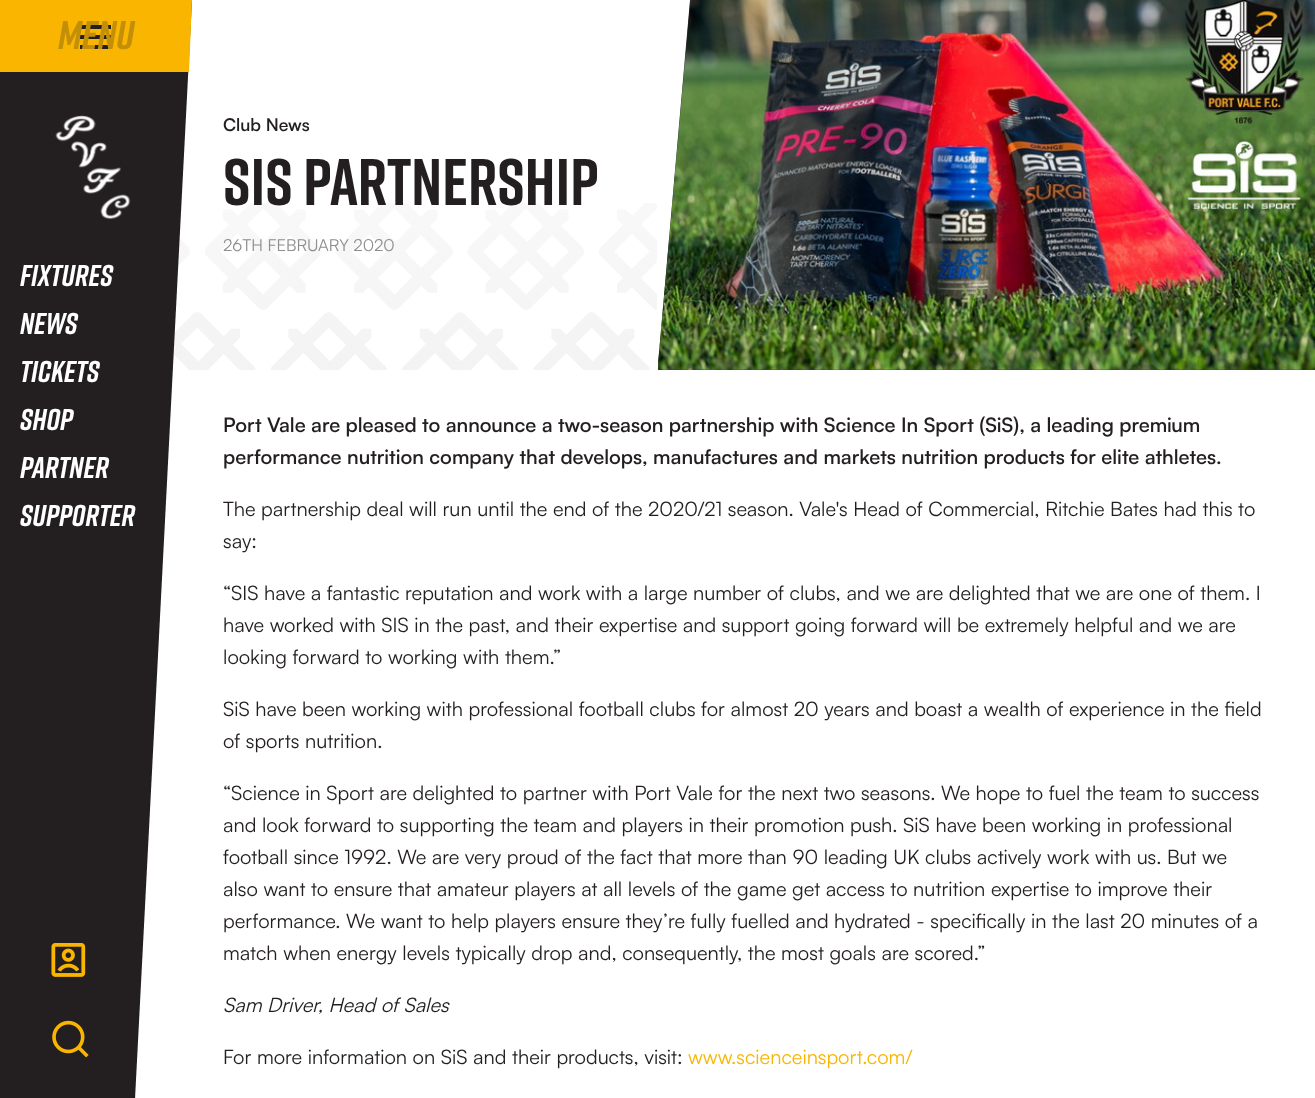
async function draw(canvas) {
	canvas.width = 1315;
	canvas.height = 1098;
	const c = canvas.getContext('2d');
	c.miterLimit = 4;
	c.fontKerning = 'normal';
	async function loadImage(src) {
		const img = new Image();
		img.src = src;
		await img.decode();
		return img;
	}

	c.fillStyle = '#fff';
	c.fillRect(0, 0, 1315, 1098);
	c.drawImage(await loadImage('img4.png'), 173, 203, 484, 167);
	c.fillStyle = '#231f20';
	c.beginPath();
	c.moveTo(0, 0);
	c.lineTo(0, 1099);
	c.lineTo(135, 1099);
	c.lineTo(192, 0);
	c.closePath();
	c.fill();
	c.fillStyle = '#fab500';
	c.beginPath();
	c.moveTo(0, 0);
	c.lineTo(0, 72);
	c.lineTo(189, 72);
	c.lineTo(192, 0);
	c.closePath();
	c.fill();
	for (const [x, y, w, h, color] of [
		[80, 35, 31, 4, '#231f20'],
		[80, 25, 31, 4, '#231f20'],
		[80, 45, 31, 4, '#231f20'],
	]) {
		c.fillStyle = color;
		c.fillRect(x, y, w, h);
	}
	c.font = 'italic bold 40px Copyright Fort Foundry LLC';
	c.fillStyle = '#c38f08';
	c.fillText('Menu', 58, 49);
	c.font = 'italic bold 30px Copyright Fort Foundry LLC';
	c.fillStyle = '#fff';
	for (const [text, x, y] of [
		['Fixtures', 20, 286],
		['News', 20, 334],
		['Tickets', 20, 382],
		['Shop', 20, 430],
		['Partner', 20, 478],
		['Supporter', 20, 526],
	]) {
		c.fillText(text, x, y);
	}
	c.drawImage(await loadImage('img1.png'), 51, 943, 35, 34);
	c.drawImage(await loadImage('img2.png'), 52, 1020, 37, 38);
	c.drawImage(await loadImage('img3.png'), 55, 115, 76, 105);
	c.font = '600 17.5px Satoshi';
	c.fillStyle = '#231f20';
	c.fillText('Club News', 223, 131);
	c.font = 'bold 65.75px Copyright Fort Foundry LLC';
	c.fillText('SIS Partnership', 223, 205);
	c.font = '16.6px Satoshi';
	c.fillStyle = '#8f8d8e';
	c.fillText('26TH FEBRUARY 2020', 223, 251);
	c.fillStyle = '#383838';
	c.beginPath();
	c.moveTo(690, 0);
	c.lineTo(658, 364);
	c.lineTo(658, 370);
	c.lineTo(1315, 370);
	c.lineTo(1315, 0);
	c.closePath();
	c.fill();
	c.drawImage(await loadImage('img5.png'), 657, 0, 658, 370);
	c.font = '600 20px Satoshi';
	c.fillStyle = '#231f20';
	c.fillText('Port Vale are pleased to announce a two-season partnership with Science In Sport (SiS), a leading premium', 223, 432);
	c.fillText('performance nutrition company that develops, manufactures and markets nutrition products for elite athletes.', 223, 464);
	c.font = '20px Satoshi';
	for (const [text, x, y] of [
		['The partnership deal will run until the end of the 2020/21 season. Vale\'s Head of Commercial, Ritchie Bates had this to', 223, 516],
		['say:', 223, 548],
		['“SIS have a fantastic reputation and work with a large number of clubs, and we are delighted that we are one of them. I', 223, 600],
		['have worked with SIS in the past, and their expertise and support going forward will be extremely helpful and we are', 223, 632],
		['looking forward to working with them.”', 223, 664],
		['SiS have been working with professional football clubs for almost 20 years and boast a wealth of experience in the field', 223, 716],
		['of sports nutrition.', 223, 748],
		['“Science in Sport are delighted to partner with Port Vale for the next two seasons. We hope to fuel the team to success', 223, 800],
		['and look forward to supporting the team and players in their promotion push. SiS have been working in professional', 223, 832],
		['football since 1992. We are very proud of the fact that more than 90 leading UK clubs actively work with us. But we', 223, 864],
		['also want to ensure that amateur players at all levels of the game get access to nutrition expertise to improve their', 223, 896],
		['performance. We want to help players ensure they’re fully fuelled and hydrated - specifically in the last 20 minutes of a', 223, 928],
		['match when energy levels typically drop and, consequently, the most goals are scored.”', 223, 960],
	]) {
		c.fillText(text, x, y);
	}
	c.font = 'italic 20px Satoshi';
	c.fillText('Sam Driver, Head of Sales', 223, 1012);
	c.font = '20px Satoshi';
	c.fillText('For more information on SiS and their products, visit:', 223, 1064);
	c.fillStyle = '#fab500';
	c.fillText('www.scienceinsport.com/', 688, 1064);
}

draw(document.querySelector('canvas'));
